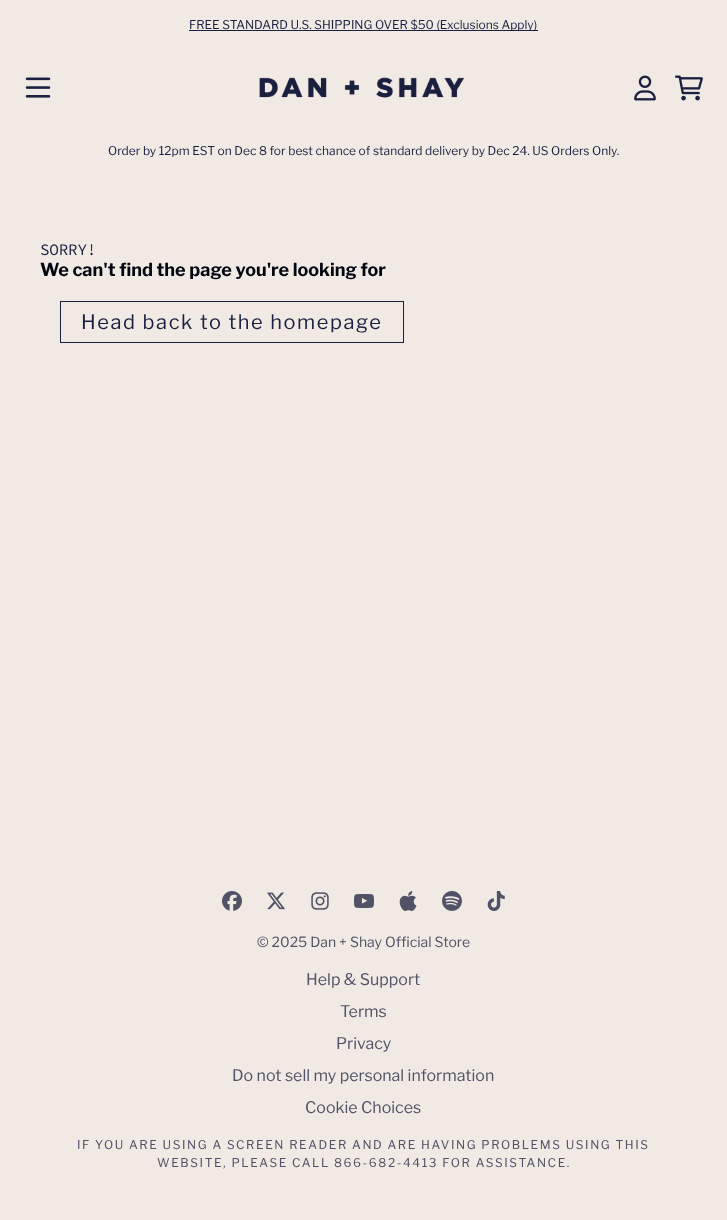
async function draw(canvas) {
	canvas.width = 727;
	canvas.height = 1220;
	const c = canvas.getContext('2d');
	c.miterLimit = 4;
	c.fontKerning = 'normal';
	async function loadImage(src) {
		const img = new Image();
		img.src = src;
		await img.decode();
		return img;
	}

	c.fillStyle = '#f1eae4';
	c.fillRect(0, 0, 727, 1220);
	c.fillStyle = '#1b2041';
	c.fillRect(189, 30, 349, 1);
	c.font = '12px Libre Franklin';
	c.fillText('FREE STANDARD U.S. SHIPPING OVER $50 (Exclusions Apply)', 189, 29);
	c.drawImage(await loadImage('img1.png'), 25, 77, 26, 21);
	c.drawImage(await loadImage('img2.png'), 259, 77, 206, 21);
	c.drawImage(await loadImage('img3.png'), 634, 75, 22, 26);
	c.drawImage(await loadImage('img4.png'), 675, 75, 28, 26);
	c.fillText('Order by 12pm EST on Dec 8 for best chance of standard delivery by Dec 24. US Orders Only.', 108, 155);
	c.letterSpacing = '-0.25px';
	c.font = '16px Source Code Pro';
	c.fillText('SORRY!', 40, 255);
	c.letterSpacing = '0px';
	c.font = 'bold 18px Libre Franklin';
	c.fillStyle = '#030711';
	c.fillText('We can\'t find the page you\'re looking for', 40, 276);
	c.strokeStyle = '#1b2041';
	c.strokeRect(60.5, 301.5, 343, 41);
	c.letterSpacing = '1.6px';
	c.font = '20px Libre Franklin';
	c.fillStyle = '#1b2041';
	c.fillText('Head back to the homepage', 81, 329);
	c.drawImage(await loadImage('img5.png'), 222, 891, 20, 20);
	c.drawImage(await loadImage('img6.png'), 267, 892, 18, 18);
	c.drawImage(await loadImage('img7.png'), 311, 892, 18, 18);
	c.drawImage(await loadImage('img8.png'), 354, 894, 20, 14);
	c.drawImage(await loadImage('img9.png'), 399, 891, 18, 20);
	c.drawImage(await loadImage('img10.png'), 442, 891, 20, 20);
	c.drawImage(await loadImage('img11.png'), 487, 891, 18, 20);
	c.letterSpacing = '0px';
	c.font = '14px Libre Franklin';
	c.fillStyle = '#515167';
	c.fillText('© 2025 Dan + Shay Official Store', 257, 947);
	c.font = '16px Libre Franklin';
	for (const [text, x, y] of [
		['Help & Support', 306, 985],
		['Terms', 340, 1017],
		['Privacy', 336, 1049],
		['Do not sell my personal information', 232, 1081],
		['Cookie Choices', 305, 1113],
	]) {
		c.fillText(text, x, y);
	}
	c.letterSpacing = '1.6px';
	c.font = '12px Libre Franklin';
	c.fillText('IF YOU ARE USING A SCREEN READER AND ARE HAVING PROBLEMS USING THIS', 77, 1149);
	c.fillText('WEBSITE, PLEASE CALL 866-682-4413 FOR ASSISTANCE.', 157, 1167);
}

draw(document.querySelector('canvas'));
